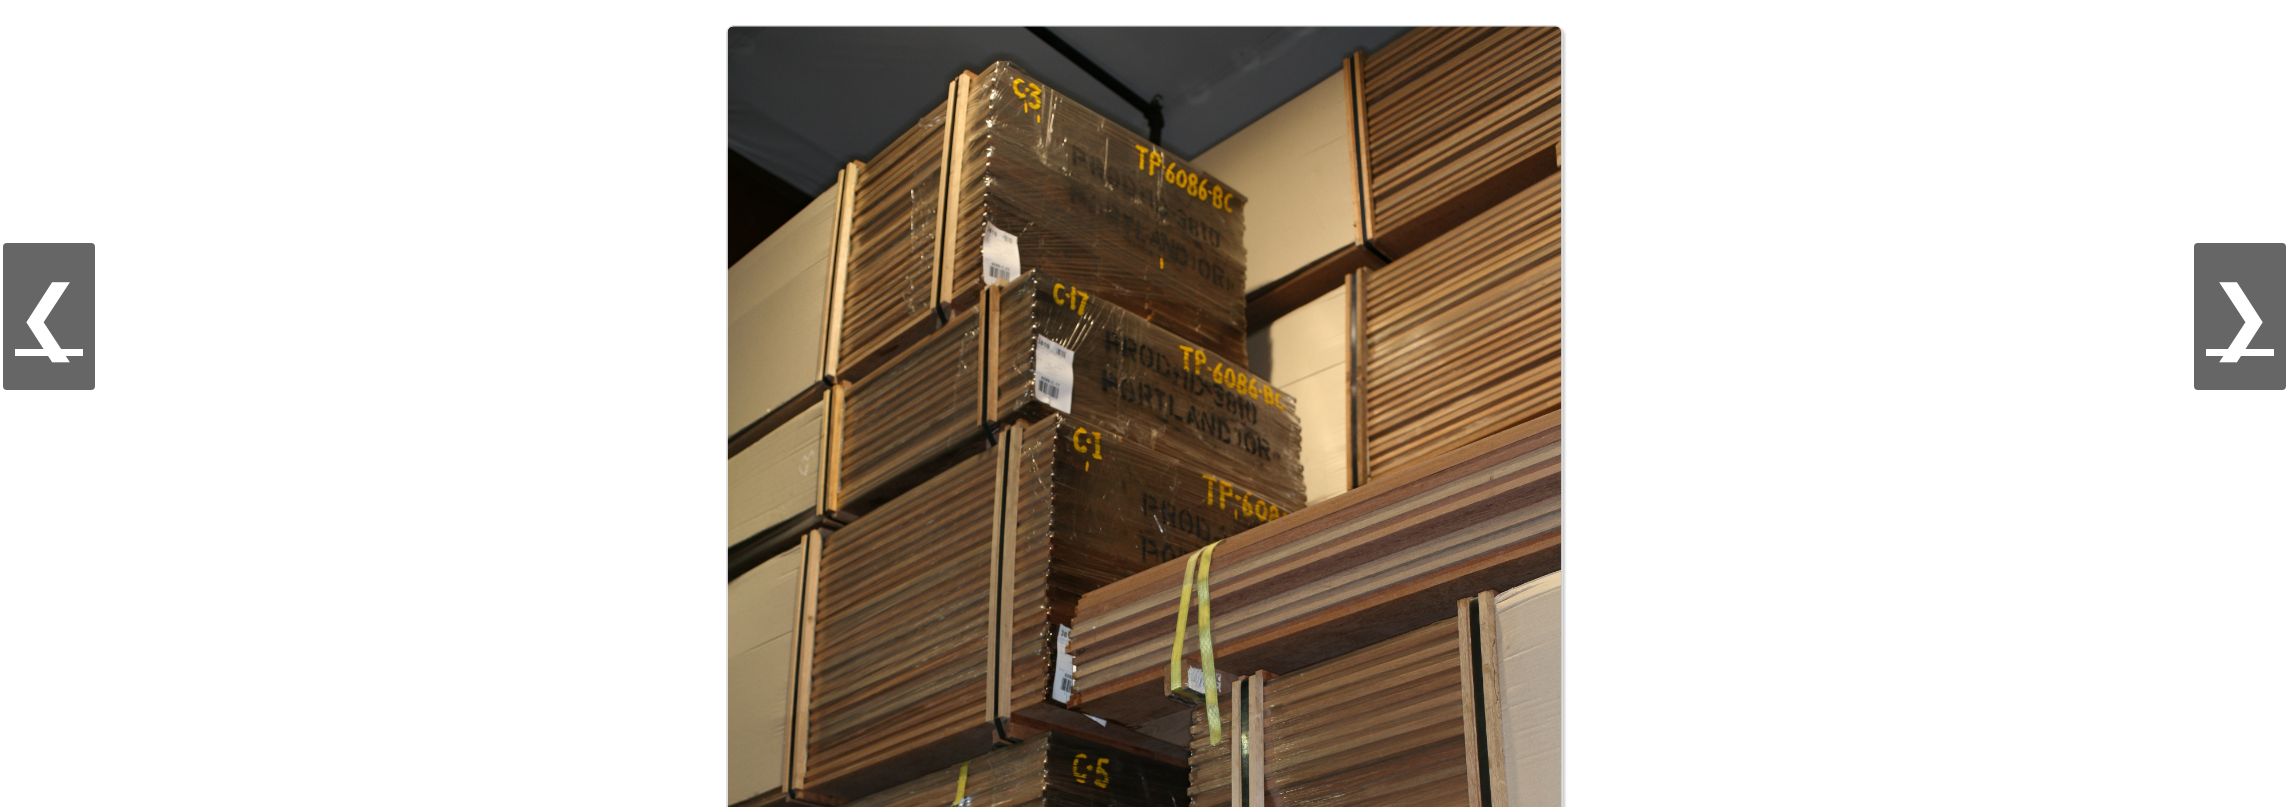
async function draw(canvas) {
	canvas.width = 2288;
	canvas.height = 807;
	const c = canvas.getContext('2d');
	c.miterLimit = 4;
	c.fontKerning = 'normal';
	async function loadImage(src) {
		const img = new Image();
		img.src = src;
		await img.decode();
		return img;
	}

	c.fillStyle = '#fff';
	c.fillRect(0, 0, 2288, 807);
	c.fillStyle = '#ccc';
	c.filter = 'blur(1px)';
	c.beginPath();
	c.roundRect(729, 28, 836, 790, 8);
	c.fill();
	c.filter = 'none';
	c.beginPath();
	c.roundRect(726.5, 25.5, 836, 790, 7.5);
	c.strokeStyle = '#ddd';
	c.stroke();
	c.fillStyle = '#666';
	c.beginPath();
	c.roundRect(3, 243, 92, 147, 4);
	c.fill();
	c.fillStyle = '#fff';
	c.fillRect(15, 349, 68, 7);
	c.font = '80px DejaVu Sans';
	c.fillText('❮', 15, 343);
	c.drawImage(await loadImage('img1.png'), 727, 26, 835, 781);
	c.fillStyle = '#666';
	c.beginPath();
	c.roundRect(2194, 243, 92, 147, 4);
	c.fill();
	c.fillStyle = '#fff';
	c.fillRect(2206, 349, 68, 7);
	c.fillText('❯', 2207, 343);
}

draw(document.querySelector('canvas'));
